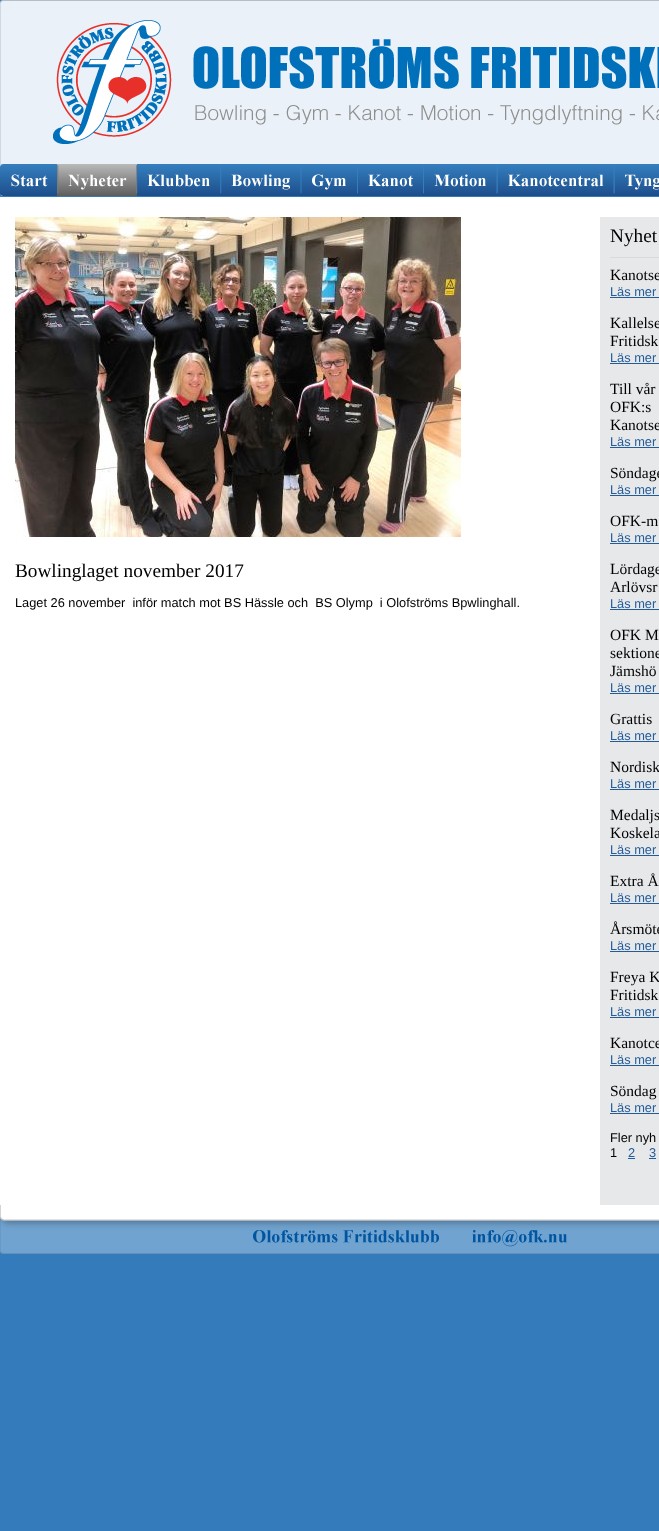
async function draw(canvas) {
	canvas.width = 659;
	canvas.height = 1531;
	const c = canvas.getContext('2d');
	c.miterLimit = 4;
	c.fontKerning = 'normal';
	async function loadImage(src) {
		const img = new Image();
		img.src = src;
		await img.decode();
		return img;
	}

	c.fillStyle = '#337bbb';
	c.fillRect(0, 0, 659, 1531);
	c.drawImage(await loadImage('img1.png'), 0, 0, 659, 167);
	c.drawImage(await loadImage('img2.png'), 53, 20, 606, 124);
	c.drawImage(await loadImage('img3.png'), 0, 164, 57, 32);
	c.drawImage(await loadImage('img4.png'), 57, 164, 80, 32);
	c.drawImage(await loadImage('img5.png'), 137, 164, 83, 32);
	c.drawImage(await loadImage('img6.png'), 220, 164, 81, 32);
	c.drawImage(await loadImage('img7.png'), 301, 164, 57, 32);
	c.drawImage(await loadImage('img8.png'), 358, 164, 66, 32);
	c.drawImage(await loadImage('img9.png'), 424, 164, 73, 32);
	c.drawImage(await loadImage('img10.png'), 497, 164, 117, 32);
	c.drawImage(await loadImage('img11.png'), 614, 164, 45, 32);
	c.fillStyle = '#fff';
	c.fillRect(0, 197, 659, 1008);
	c.drawImage(await loadImage('img12.png'), 15, 217, 446, 320);
	c.font = '19.25px Liberation Serif';
	c.fillStyle = '#000';
	c.fillText('Bowlinglaget november 2017', 15, 577);
	c.font = '12.8px Liberation Sans';
	c.fillText('Laget 26 november  inför match mot BS Hässle och  BS Olymp  i Olofströms Bpwlinghall.', 15, 607);
	c.fillStyle = '#e7e8ea';
	c.fillRect(600, 217, 59, 988);
	c.font = '19.25px Liberation Serif';
	c.fillStyle = '#000';
	c.fillText('Nyhet', 610, 242);
	c.fillStyle = '#dadada';
	c.fillRect(610, 257, 49, 1);
	c.font = '15.5px Liberation Serif';
	c.fillStyle = '#000';
	c.fillText('Kanotse', 610, 280);
	c.font = '12.8px Liberation Sans';
	c.fillStyle = '#235c9a';
	c.fillText('Läs mer', 610, 296);
	c.fillRect(610, 297, 49, 1);
	c.font = '15.5px Liberation Serif';
	c.fillStyle = '#000';
	c.fillText('Kallelse', 610, 328);
	c.fillText('Fritidsk', 610, 346);
	c.font = '12.8px Liberation Sans';
	c.fillStyle = '#235c9a';
	c.fillText('Läs mer', 610, 362);
	c.fillRect(610, 363, 49, 1);
	c.font = '15.5px Liberation Serif';
	c.fillStyle = '#000';
	for (const [text, x, y] of [
		['Till vår', 610, 394],
		['OFK:s', 610, 412],
		['Kanotse', 610, 430],
	]) {
		c.fillText(text, x, y);
	}
	c.font = '12.8px Liberation Sans';
	c.fillStyle = '#235c9a';
	c.fillText('Läs mer', 610, 446);
	c.fillRect(610, 447, 49, 1);
	c.font = '15.5px Liberation Serif';
	c.fillStyle = '#000';
	c.fillText('Söndage', 610, 478);
	c.font = '12.8px Liberation Sans';
	c.fillStyle = '#235c9a';
	c.fillText('Läs mer', 610, 494);
	c.fillRect(610, 495, 49, 1);
	c.font = '15.5px Liberation Serif';
	c.fillStyle = '#000';
	c.fillText('OFK-m', 610, 526);
	c.font = '12.8px Liberation Sans';
	c.fillStyle = '#235c9a';
	c.fillText('Läs mer', 610, 542);
	c.fillRect(610, 543, 49, 1);
	c.font = '15.5px Liberation Serif';
	c.fillStyle = '#000';
	c.fillText('Lördage', 610, 574);
	c.fillText('Arlövsr', 610, 592);
	c.font = '12.8px Liberation Sans';
	c.fillStyle = '#235c9a';
	c.fillText('Läs mer', 610, 608);
	c.fillRect(610, 609, 49, 1);
	c.font = '15.5px Liberation Serif';
	c.fillStyle = '#000';
	for (const [text, x, y] of [
		['OFK M', 610, 640],
		['sektione', 610, 658],
		['Jämshö', 610, 676],
	]) {
		c.fillText(text, x, y);
	}
	c.font = '12.8px Liberation Sans';
	c.fillStyle = '#235c9a';
	c.fillText('Läs mer', 610, 692);
	c.fillRect(610, 693, 49, 1);
	c.font = '15.5px Liberation Serif';
	c.fillStyle = '#000';
	c.fillText('Grattis', 610, 724);
	c.font = '12.8px Liberation Sans';
	c.fillStyle = '#235c9a';
	c.fillText('Läs mer', 610, 740);
	c.fillRect(610, 741, 49, 1);
	c.font = '15.5px Liberation Serif';
	c.fillStyle = '#000';
	c.fillText('Nordisk', 610, 772);
	c.font = '12.8px Liberation Sans';
	c.fillStyle = '#235c9a';
	c.fillText('Läs mer', 610, 788);
	c.fillRect(610, 789, 49, 1);
	c.font = '15.5px Liberation Serif';
	c.fillStyle = '#000';
	c.fillText('Medaljs', 610, 820);
	c.fillText('Koskela', 610, 838);
	c.font = '12.8px Liberation Sans';
	c.fillStyle = '#235c9a';
	c.fillText('Läs mer', 610, 854);
	c.fillRect(610, 855, 49, 1);
	c.font = '15.5px Liberation Serif';
	c.fillStyle = '#000';
	c.fillText('Extra Å', 610, 886);
	c.font = '12.8px Liberation Sans';
	c.fillStyle = '#235c9a';
	c.fillText('Läs mer', 610, 902);
	c.fillRect(610, 903, 49, 1);
	c.font = '15.5px Liberation Serif';
	c.fillStyle = '#000';
	c.fillText('Årsmöte', 610, 934);
	c.font = '12.8px Liberation Sans';
	c.fillStyle = '#235c9a';
	c.fillText('Läs mer', 610, 950);
	c.fillRect(610, 951, 49, 1);
	c.font = '15.5px Liberation Serif';
	c.fillStyle = '#000';
	c.fillText('Freya K', 610, 982);
	c.fillText('Fritidsk', 610, 1000);
	c.font = '12.8px Liberation Sans';
	c.fillStyle = '#235c9a';
	c.fillText('Läs mer', 610, 1016);
	c.fillRect(610, 1017, 49, 1);
	c.font = '15.5px Liberation Serif';
	c.fillStyle = '#000';
	c.fillText('Kanotce', 610, 1048);
	c.font = '12.8px Liberation Sans';
	c.fillStyle = '#235c9a';
	c.fillText('Läs mer', 610, 1064);
	c.fillRect(610, 1065, 49, 1);
	c.font = '15.5px Liberation Serif';
	c.fillStyle = '#000';
	c.fillText('Söndag', 610, 1096);
	c.font = '12.8px Liberation Sans';
	c.fillStyle = '#235c9a';
	c.fillText('Läs mer', 610, 1112);
	c.fillRect(610, 1113, 49, 1);
	c.fillStyle = '#000';
	c.fillText('Fler nyh', 610, 1142);
	c.fillText('1', 610, 1157);
	c.fillStyle = '#235c9a';
	c.fillText('2', 628, 1157);
	c.fillRect(628, 1158, 7, 1);
	c.fillText('3', 649, 1157);
	c.fillRect(649, 1158, 7, 1);
	c.drawImage(await loadImage('img13.png'), 0, 1205, 659, 49);
}

draw(document.querySelector('canvas'));
